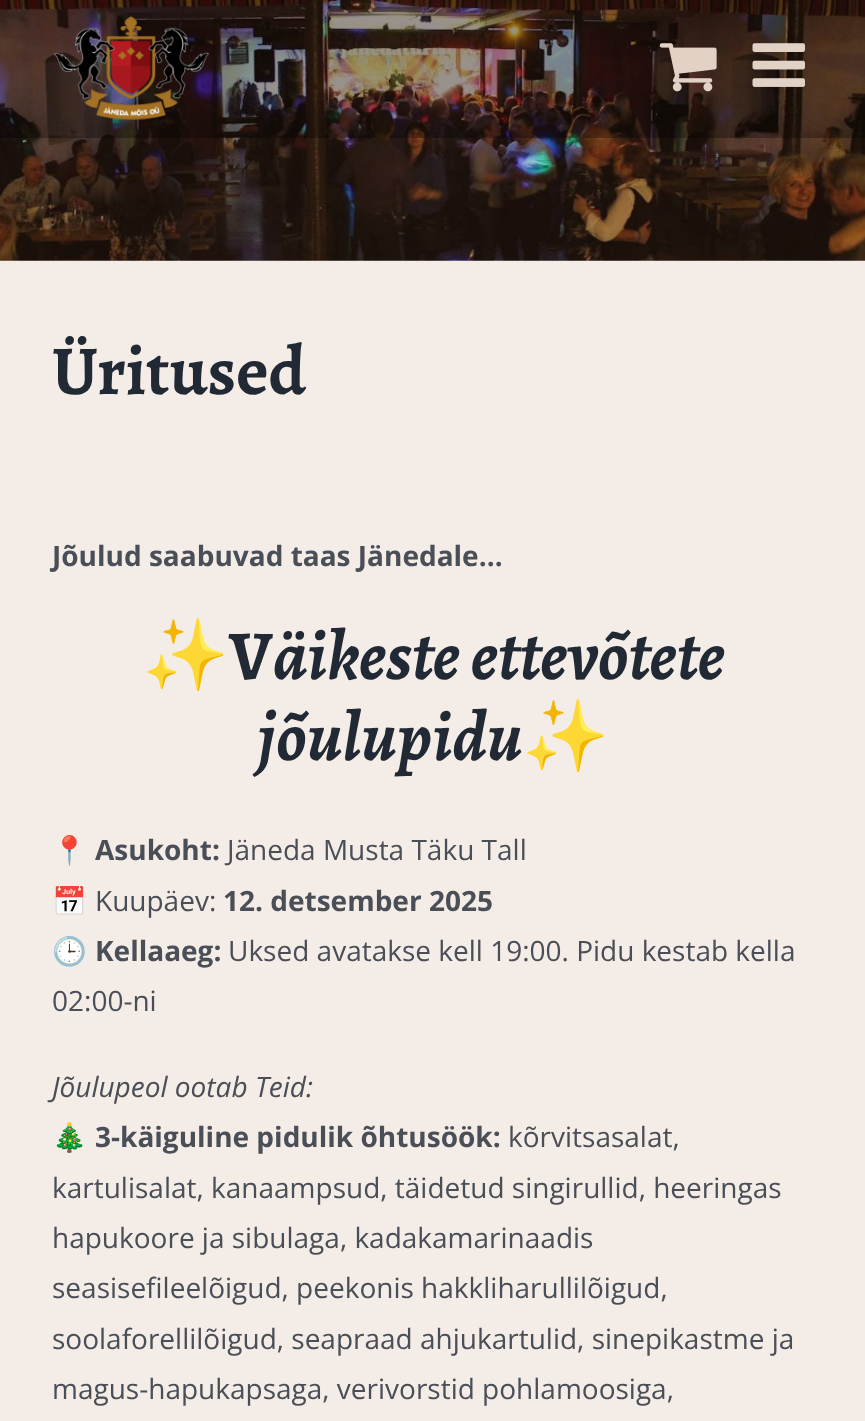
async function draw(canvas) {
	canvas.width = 865;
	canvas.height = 1421;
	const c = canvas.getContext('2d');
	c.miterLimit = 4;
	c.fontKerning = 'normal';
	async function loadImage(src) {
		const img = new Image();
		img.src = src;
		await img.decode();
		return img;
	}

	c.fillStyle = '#f4ece6';
	c.fillRect(0, 0, 865, 1421);
	c.drawImage(await loadImage('img1.png'), 0, 0, 865, 261);
	c.fillStyle = '#0000004d';
	c.fillRect(0, 0, 865, 138);
	c.drawImage(await loadImage('img2.png'), 54, 16, 155, 105);
	c.drawImage(await loadImage('img3.png'), 659, 43, 58, 49);
	c.drawImage(await loadImage('img4.png'), 752, 43, 53, 44);
	c.font = 'bold 70px Alegreya';
	c.fillStyle = '#212934';
	c.fillText('Üritused', 52, 394);
	c.font = 'bold 28px Open Sans';
	c.fillStyle = '#4a4e57';
	c.fillText('Jõulud saabuvad taas Jänedale…', 52, 566);
	c.font = 'bold 70px Noto Color Emoji';
	c.fillStyle = '#212934';
	c.fillText('✨', 142, 679);
	c.font = 'bold 70px Alegreya';
	c.fillText('V', 229, 679);
	c.font = 'italic bold 70px Alegreya';
	c.fillText('äikeste ettevõtete', 273, 679);
	c.fillText('jõulupidu', 257, 760);
	c.font = 'bold 70px Noto Color Emoji';
	c.fillText('✨', 522, 760);
	c.font = '28px Noto Color Emoji';
	c.fillStyle = '#4a4e57';
	c.fillText('📍', 52, 860);
	c.font = 'bold 28px Open Sans';
	c.fillText('Asukoht:', 95, 860);
	c.font = '28px Open Sans';
	c.fillText('Jäneda Musta Täku Tall', 227, 860);
	c.font = '28px Noto Color Emoji';
	c.fillText('📅', 52, 911);
	c.font = '28px Open Sans';
	c.fillText('Kuupäev:', 95, 911);
	c.font = 'bold 28px Open Sans';
	c.fillText('12. detsember 2025', 223, 911);
	c.font = '28px Noto Color Emoji';
	c.fillText('🕒', 52, 961);
	c.font = 'bold 28px Open Sans';
	c.fillText('Kellaaeg:', 95, 961);
	c.font = '28px Open Sans';
	c.fillText('Uksed avatakse kell 19:00. Pidu kestab kella', 228, 961);
	c.fillText('02:00-ni', 52, 1011);
	c.font = 'italic 28px Open Sans';
	c.fillText('Jõulupeol ootab Teid:', 52, 1097);
	c.font = '28px Noto Color Emoji';
	c.fillText('🎄', 52, 1147);
	c.font = 'bold 28px Open Sans';
	c.fillText('3-käiguline pidulik õhtusöök:', 95, 1147);
	c.font = '28px Open Sans';
	for (const [text, x, y] of [
		['kõrvitsasalat,', 508, 1147],
		['kartulisalat, kanaampsud, täidetud singirullid, heeringas', 52, 1198],
		['hapukoore ja sibulaga, kadakamarinaadis', 52, 1248],
		['seasisefileelõigud, peekonis hakkliharullilõigud,', 52, 1298],
		['soolaforellilõigud, seapraad ahjukartulid, sinepikastme ja', 52, 1349],
		['magus-hapukapsaga, verivorstid pohlamoosiga,', 52, 1399],
	]) {
		c.fillText(text, x, y);
	}
}

draw(document.querySelector('canvas'));
